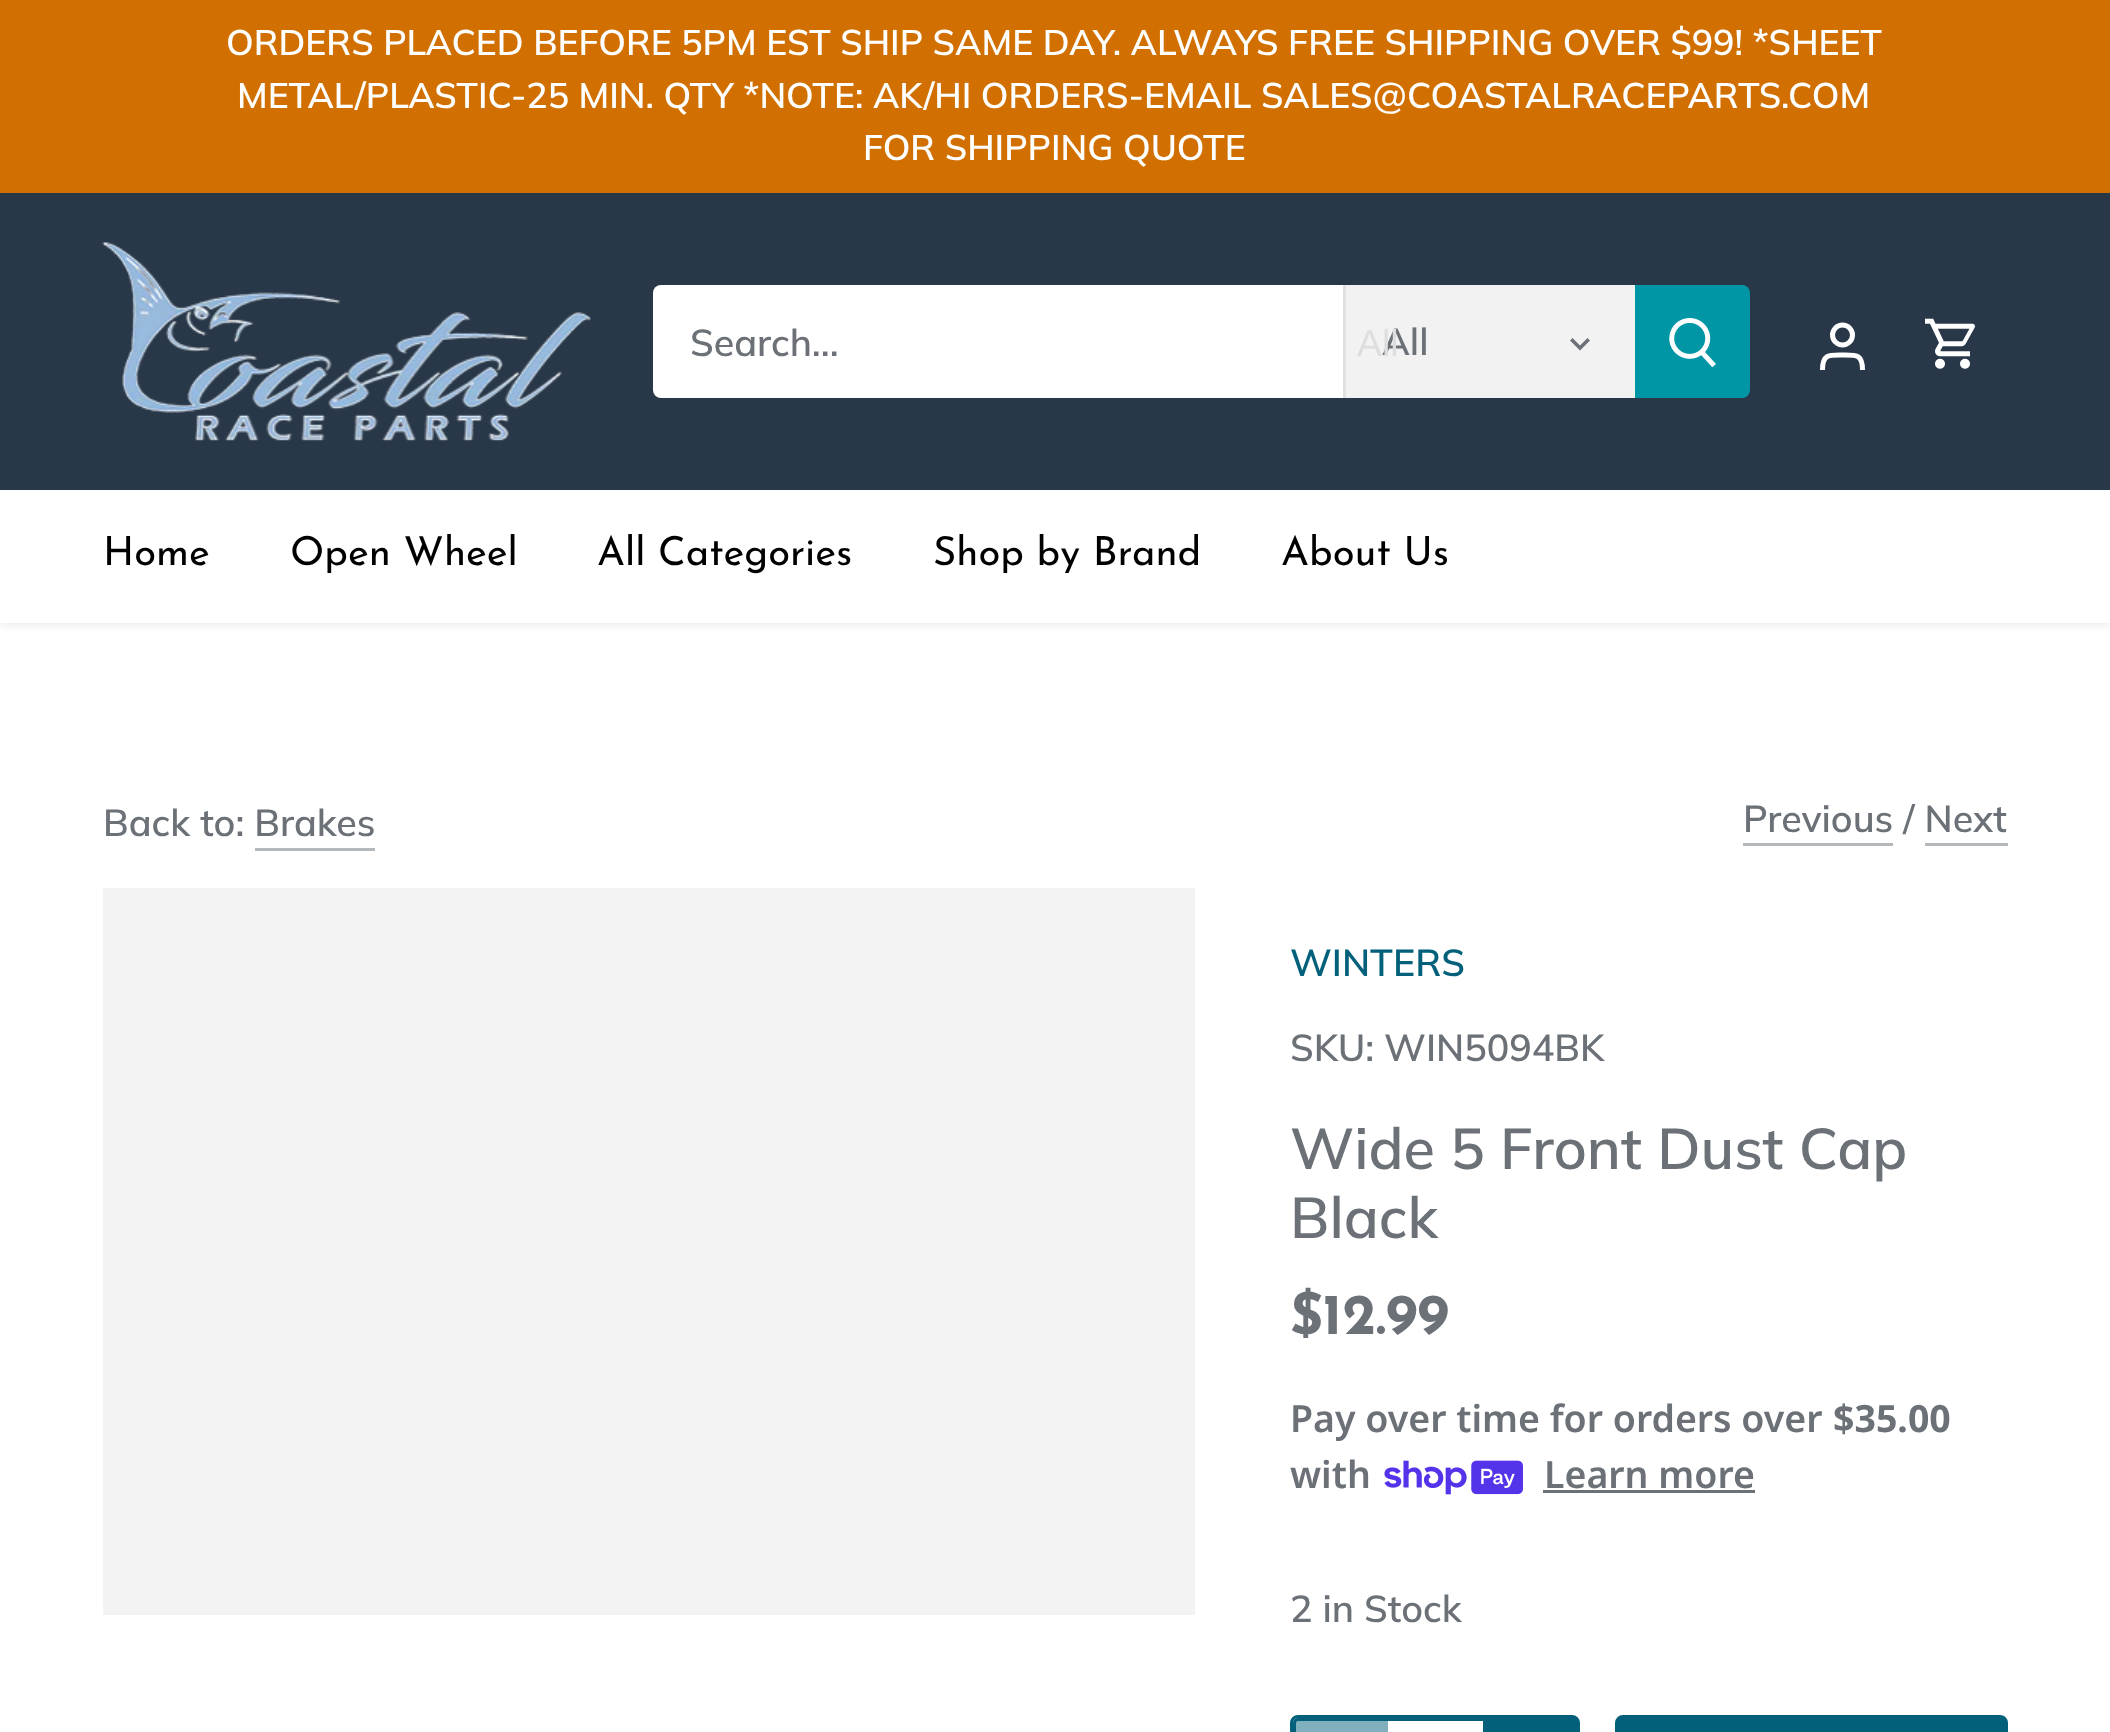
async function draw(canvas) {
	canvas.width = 2110;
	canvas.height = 1732;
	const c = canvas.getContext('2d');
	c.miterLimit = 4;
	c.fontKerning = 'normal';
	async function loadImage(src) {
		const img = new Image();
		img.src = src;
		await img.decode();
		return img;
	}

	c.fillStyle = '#fff';
	c.fillRect(0, 0, 2110, 1732);
	c.fillStyle = '#00000014';
	c.filter = 'blur(4px)';
	c.beginPath();
	c.rect(-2, 190, 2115, 435);
	c.fill();
	c.filter = 'none';
	c.fillStyle = '#d17000';
	c.fillRect(0, 0, 2110, 193);
	c.font = '600 35.6px Muli';
	c.fillStyle = '#fff';
	for (const [text, x, y] of [
		['ORDERS PLACED BEFORE 5PM EST SHIP SAME DAY. ALWAYS FREE SHIPPING OVER $99! *SHEET', 226, 55],
		['METAL/PLASTIC-25 MIN. QTY *NOTE: AK/HI ORDERS-EMAIL SALES@COASTALRACEPARTS.COM', 237, 108],
		['FOR SHIPPING QUOTE', 863, 160],
	]) {
		c.fillText(text, x, y);
	}
	c.fillRect(0, 490, 2110, 133);
	c.fillStyle = '#293849';
	c.fillRect(0, 193, 2110, 297);
	c.drawImage(await loadImage('img1.png'), 102, 242, 489, 199);
	c.fillStyle = '#fff';
	c.beginPath();
	c.roundRect(653, 285, 690, 113, [8, 0, 0, 8]);
	c.fill();
	c.font = '600 37.5px Muli';
	c.fillStyle = '#6b7177';
	c.fillText('Search...', 690, 356);
	c.fillStyle = '#f2f2f2';
	c.fillRect(1346, 285, 289, 113);
	c.fillStyle = '#e0e1e2';
	c.fillRect(1343, 285, 3, 113);
	c.fillStyle = '#6b7177';
	c.fillText('All', 1382, 355);
	c.font = '37.5px Liberation Sans';
	c.fillStyle = '#dddedf';
	c.fillText('All', 1357, 356);
	c.fillStyle = '#6b7177';
	c.beginPath();
	c.moveTo(1572.5, 338);
	c.lineTo(1580, 345.5);
	c.lineTo(1587.5, 338);
	c.lineTo(1590, 340.5);
	c.lineTo(1580, 350.5);
	c.lineTo(1570, 340.5);
	c.closePath();
	c.fill();
	c.fillStyle = '#0096a6';
	c.beginPath();
	c.roundRect(1635, 285, 115, 113, [0, 8, 8, 0]);
	c.fill();
	c.drawImage(await loadImage('img2.png'), 1669, 318, 47, 50);
	c.beginPath();
	c.arc(1842.5, 335, 10, 0, 2 * Math.PI);
	c.strokeStyle = '#fff';
	c.lineWidth = 5;
	c.stroke();
	c.beginPath();
	c.moveTo(1862.5, 370);
	c.bezierCurveTo(1862.5, 354, 1856.5, 355, 1842.5, 355);
	c.bezierCurveTo(1828.5, 355, 1822.5, 354, 1822.5, 370);
	c.stroke();
	c.drawImage(await loadImage('img3.png'), 1925, 318, 50, 51);
	c.font = '40px Josefin Sans';
	c.fillStyle = '#000';
	for (const [text, x, y] of [
		['Home', 103, 565],
		['Open Wheel', 290, 565],
		['All Categories', 597, 565],
		['Shop by Brand', 933, 565],
		['About Us', 1281, 565],
	]) {
		c.fillText(text, x, y);
	}
	c.font = '600 37.5px Muli';
	c.fillStyle = '#6b7177';
	c.fillText('Back to: Brakes', 103, 836);
	c.fillStyle = '#b5b8bb';
	c.fillRect(255, 848, 120, 3);
	c.fillStyle = '#6b7177';
	c.fillText('Previous / Next', 1743, 832);
	for (const [x, y, w, h, color] of [
		[1743, 843, 150, 3, '#b5b8bb'],
		[1925, 843, 83, 3, '#b5b8bb'],
		[103, 888, 1092, 727, '#f3f3f3'],
	]) {
		c.fillStyle = color;
		c.fillRect(x, y, w, h);
	}
	c.fillStyle = '#02607b';
	c.fillText('WINTERS', 1290, 976);
	c.fillStyle = '#6b7177';
	c.fillText('SKU: WIN5094BK', 1290, 1061);
	c.font = '600 57.5px Muli';
	c.fillText('Wide 5 Front Dust Cap', 1290, 1169);
	c.fillText('Black', 1290, 1238);
	c.font = 'bold 57.5px Josefin Sans';
	c.fillText('$12.99', 1290, 1334);
	c.font = '600 37.5px Noto Sans';
	c.fillText('Pay over time for orders over', 1290, 1432);
	c.font = 'bold 37.5px Noto Sans';
	c.fillText('$35.00', 1833, 1432);
	c.font = '600 37.5px Noto Sans';
	c.fillText('with', 1290, 1488);
	c.drawImage(await loadImage('img4.png'), 1384, 1460, 139, 35);
	c.fillText('Learn more', 1544, 1488);
	c.fillRect(1543, 1490, 212, 3);
	c.font = '600 37.5px Muli';
	c.fillText('2 in Stock', 1290, 1622);
	c.beginPath();
	c.roundRect(1294.5, 1719.5, 282, 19, 3.5);
	c.strokeStyle = '#02607b';
	c.lineWidth = 3;
	c.stroke();
	c.beginPath();
	c.roundRect(1291.5, 1716.5, 287, 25, 6.5);
	c.stroke();
	c.fillStyle = '#02607b80';
	c.beginPath();
	c.moveTo(1301, 1718);
	c.lineTo(1388, 1718);
	c.lineTo(1388, 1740);
	c.lineTo(1301, 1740);
	c.bezierCurveTo(1296.5, 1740, 1293, 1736.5, 1293, 1732);
	c.lineTo(1293, 1726);
	c.bezierCurveTo(1293, 1721.5, 1296.5, 1718, 1301, 1718);
	c.closePath();
	c.fill();
	c.fillStyle = '#02607b';
	c.beginPath();
	c.moveTo(1483, 1718);
	c.lineTo(1570, 1718);
	c.bezierCurveTo(1574.5, 1718, 1578, 1721.5, 1578, 1726);
	c.lineTo(1578, 1732);
	c.bezierCurveTo(1578, 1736.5, 1574.5, 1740, 1570, 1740);
	c.lineTo(1483, 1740);
	c.closePath();
	c.fill();
	c.beginPath();
	c.roundRect(1617.5, 1717.5, 388, 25, 5.5);
	c.fill();
	c.lineWidth = 5;
	c.stroke();
}

draw(document.querySelector('canvas'));
